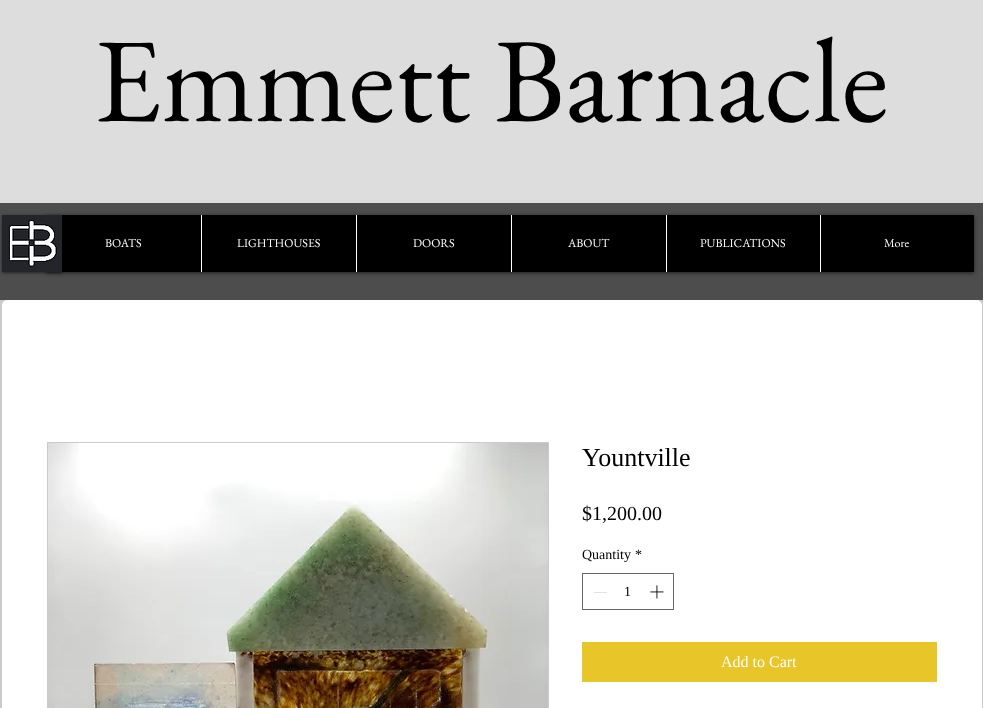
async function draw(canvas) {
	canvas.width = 983;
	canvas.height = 708;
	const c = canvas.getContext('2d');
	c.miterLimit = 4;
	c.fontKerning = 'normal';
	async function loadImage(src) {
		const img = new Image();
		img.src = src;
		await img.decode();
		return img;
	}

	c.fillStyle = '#cacaca';
	c.fillRect(0, 0, 983, 708);
	c.fillStyle = '#ddd';
	c.fillRect(0, 0, 983, 203);
	c.font = '120px EB Garamond';
	c.fillStyle = '#000';
	c.fillText('Emmett Barnacle', 94, 121);
	c.fillStyle = '#4d4d4d';
	c.fillRect(0, 203, 983, 97);
	c.fillStyle = '#00000099';
	c.filter = 'blur(2px)';
	c.beginPath();
	c.rect(46, 216, 928, 57);
	c.fill();
	c.filter = 'none';
	c.fillStyle = '#000';
	c.fillRect(46, 215, 928, 57);
	c.fillStyle = '#00000080';
	c.filter = 'blur(1.5px)';
	c.beginPath();
	c.rect(2, 216, 60, 57);
	c.fill();
	c.filter = 'none';
	c.drawImage(await loadImage('img1.png'), 2, 215, 60, 57);
	c.font = '12px EB Garamond';
	c.fillStyle = '#fff';
	c.fillText('BOATS', 105, 247);
	c.fillRect(201, 215, 1, 57);
	c.fillText('LIGHTHOUSES', 237, 247);
	c.fillRect(356, 215, 1, 57);
	c.fillText('DOORS', 413, 247);
	c.fillRect(511, 215, 1, 57);
	c.fillText('ABOUT', 568, 247);
	c.fillRect(666, 215, 1, 57);
	c.fillText('PUBLICATIONS', 700, 247);
	c.fillRect(820, 215, 1, 57);
	c.fillText('More', 884, 247);
	c.beginPath();
	c.roundRect(2.5, 300.5, 979, 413, 4.5);
	c.fill();
	c.strokeStyle = '#fff';
	c.stroke();
	c.strokeStyle = '#cacaca';
	c.strokeRect(47.5, 442.5, 501, 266);
	c.drawImage(await loadImage('img2.png'), 48, 443, 500, 265);
	c.font = '26px Liberation Serif';
	c.fillStyle = '#000';
	c.fillText('Yountville', 582, 466);
	c.font = '20px Liberation Serif';
	c.fillText('$1,200.00', 582, 520);
	c.font = '14px Liberation Serif';
	c.fillText('Quantity', 582, 559);
	c.fillText('*', 635, 559);
	c.strokeStyle = '#666';
	c.strokeRect(582.5, 573.5, 91, 36);
	c.fillStyle = '#e3e3e3';
	c.fillRect(594, 592, 13, 1);
	c.fillStyle = '#000';
	c.fillText('1', 624, 596);
	c.drawImage(await loadImage('img3.png'), 650, 585, 14, 14);
	c.fillStyle = '#e8c529';
	c.fillRect(582, 642, 355, 40);
	c.font = '16px Liberation Serif';
	c.fillStyle = '#fff';
	c.fillText('Add to Cart', 721, 667);
}

draw(document.querySelector('canvas'));
